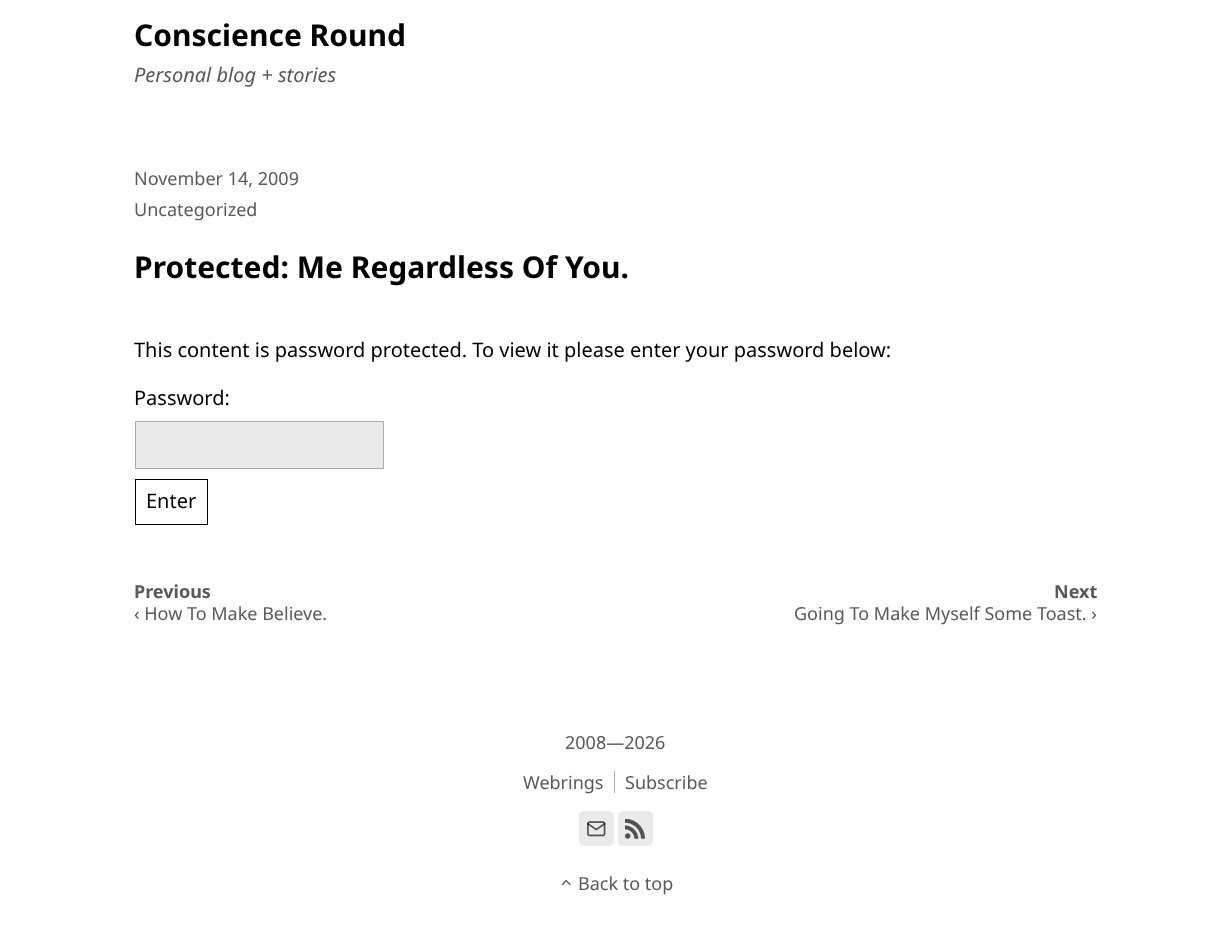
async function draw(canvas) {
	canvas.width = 1231;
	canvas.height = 939;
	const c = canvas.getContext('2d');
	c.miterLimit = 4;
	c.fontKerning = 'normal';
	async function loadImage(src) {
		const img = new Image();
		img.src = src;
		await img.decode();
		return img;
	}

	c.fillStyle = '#fff';
	c.fillRect(0, 0, 1231, 939);
	c.font = 'bold 30px Noto Sans';
	c.fillStyle = '#000';
	c.fillText('Conscience Round', 134, 46);
	c.font = 'italic 20px Noto Sans';
	c.fillStyle = '#595959';
	c.fillText('Personal blog + stories', 134, 82);
	c.font = '18px Noto Sans';
	c.fillText('November 14, 2009', 134, 185);
	c.fillText('Uncategorized', 134, 216);
	c.font = 'bold 30px Noto Sans';
	c.fillStyle = '#000';
	c.fillText('Protected: Me Regardless Of You.', 134, 278);
	c.font = '20px Noto Sans';
	c.fillText('This content is password protected. To view it please enter your password below:', 134, 357);
	c.fillText('Password:', 134, 405);
	c.fillStyle = '#eaeaea';
	c.beginPath();
	c.rect(135.5, 421.5, 248, 47);
	c.fill();
	c.strokeStyle = '#aaa';
	c.stroke();
	c.strokeStyle = '#000';
	c.strokeRect(135.5, 479.5, 72, 45);
	c.fillStyle = '#000';
	c.fillText('Enter', 146, 508);
	c.font = 'bold 18px Noto Sans';
	c.fillStyle = '#595959';
	c.fillText('Previous', 134, 598);
	c.font = '18px Noto Sans';
	c.fillText('‹ How To Make Believe.', 134, 620);
	c.font = 'bold 18px Noto Sans';
	c.fillText('Next', 1054, 598);
	c.font = '18px Noto Sans';
	c.fillText('Going To Make Myself Some Toast. ›', 794, 620);
	c.fillText('2008—2026', 565, 749);
	c.fillStyle = '#aaa';
	c.fillRect(614, 771, 1, 22);
	c.fillStyle = '#595959';
	c.fillText('Webrings', 523, 789);
	c.fillText('Subscribe', 625, 789);
	c.fillStyle = '#eaeaea';
	c.beginPath();
	c.roundRect(579, 811, 35, 35, 5);
	c.fill();
	c.drawImage(await loadImage('img1.png'), 587, 821, 19, 16);
	c.beginPath();
	c.roundRect(618, 811, 35, 35, 5);
	c.fill();
	c.drawImage(await loadImage('img2.png'), 625, 819, 20, 20);
	c.beginPath();
	c.moveTo(570, 884.5);
	c.lineTo(566, 880.5);
	c.lineTo(562.5, 884.5);
	c.strokeStyle = '#595959';
	c.lineWidth = 1.2;
	c.lineCap = 'round';
	c.lineJoin = 'round';
	c.stroke();
	c.fillStyle = '#595959';
	c.fillText('Back to top', 578, 890);
}

draw(document.querySelector('canvas'));
